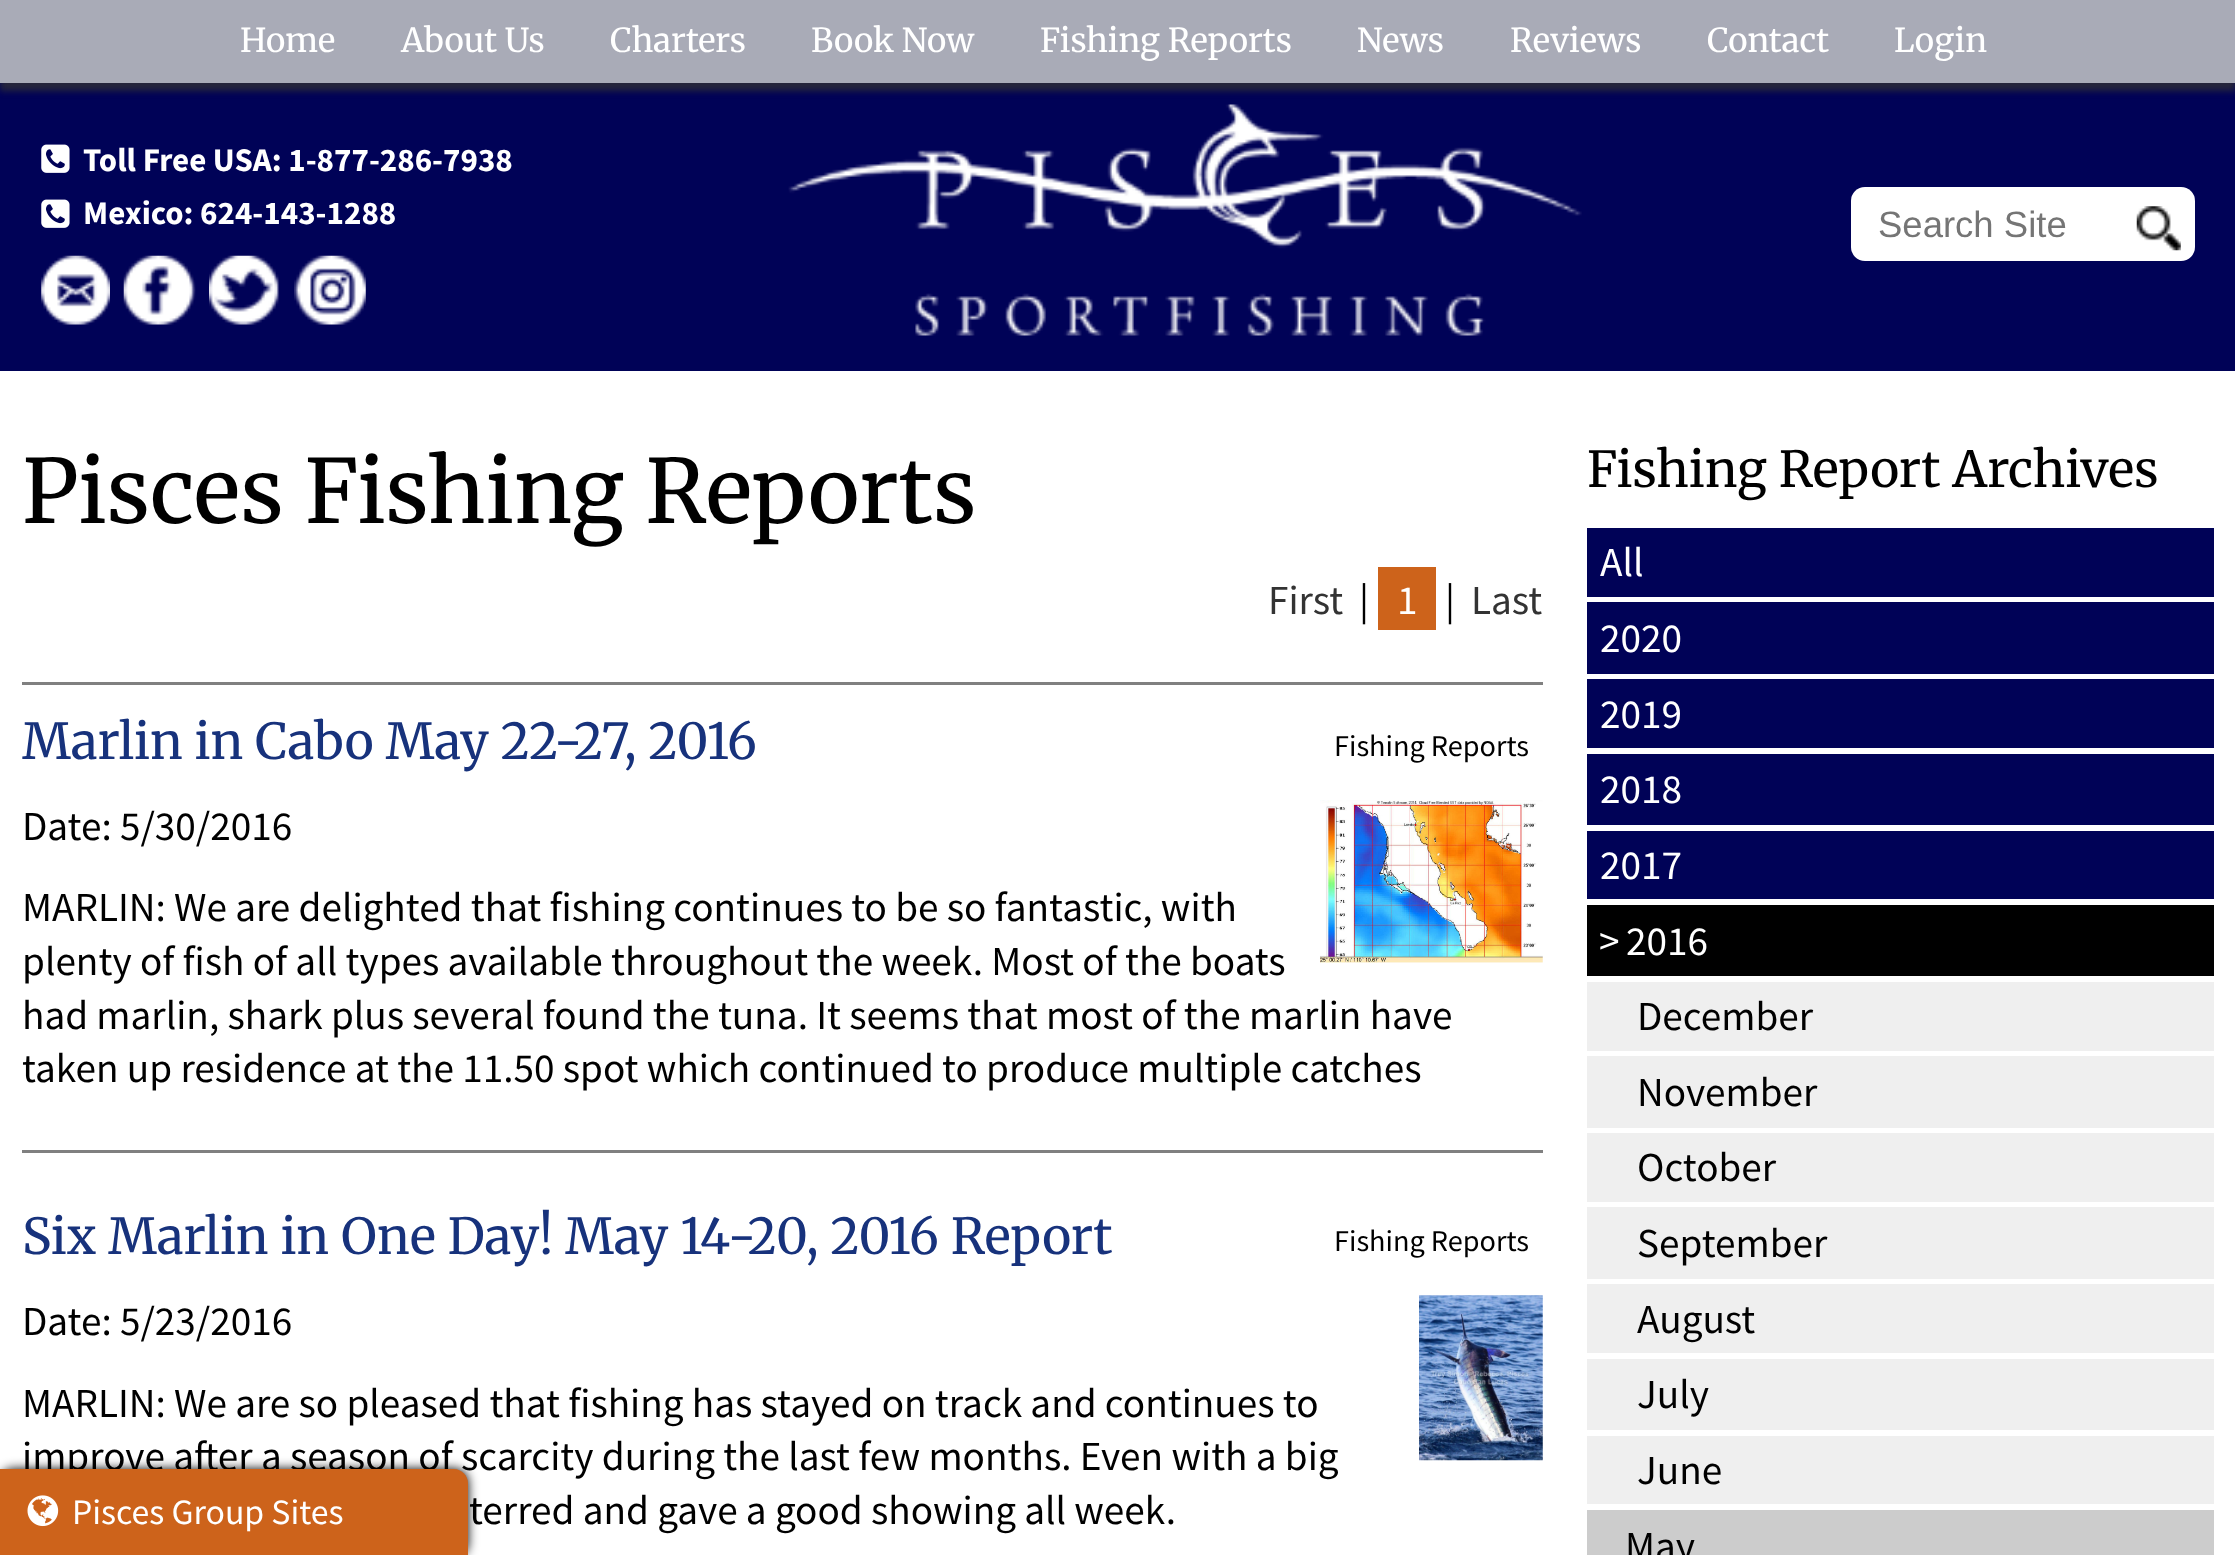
async function draw(canvas) {
	canvas.width = 2235;
	canvas.height = 1555;
	const c = canvas.getContext('2d');
	c.miterLimit = 4;
	c.fontKerning = 'normal';
	async function loadImage(src) {
		const img = new Image();
		img.src = src;
		await img.decode();
		return img;
	}

	c.fillStyle = '#fff';
	c.fillRect(0, 0, 2235, 1555);
	c.fillStyle = '#000257';
	c.fillRect(0, 83, 2235, 288);
	c.fillStyle = '#323232bf';
	c.filter = 'blur(3px)';
	c.beginPath();
	c.rect(0, 8, 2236, 83);
	c.fill();
	c.filter = 'none';
	c.fillStyle = '#a9abb7';
	c.fillRect(0, 0, 2235, 83);
	c.font = '300 33px Merriweather';
	c.fillStyle = '#fff';
	for (const [text, x, y] of [
		['Home', 240, 52],
		['About Us', 401, 52],
		['Charters', 610, 52],
		['Book Now', 811, 52],
		['Fishing Reports', 1040, 52],
		['News', 1357, 52],
		['Reviews', 1510, 52],
		['Contact', 1707, 52],
		['Login', 1894, 52],
	]) {
		c.fillText(text, x, y);
	}
	c.drawImage(await loadImage('img1.png'), 41, 144, 29, 29);
	c.font = 'bold 33px Source Sans Pro';
	c.fillText('Toll Free USA: 1-877-286-7938', 83, 171);
	c.drawImage(await loadImage('img1.png'), 41, 199, 29, 29);
	c.fillText('Mexico: 624-143-1288', 83, 224);
	c.drawImage(await loadImage('img2.png'), 41, 255, 69, 70);
	c.drawImage(await loadImage('img3.png'), 123, 255, 73, 70);
	c.drawImage(await loadImage('img4.png'), 209, 255, 70, 70);
	c.drawImage(await loadImage('img5.png'), 294, 255, 72, 70);
	c.drawImage(await loadImage('img6.png'), 788, 104, 794, 232);
	c.beginPath();
	c.roundRect(1851, 187, 344, 74, 14);
	c.fill();
	c.font = '36.5px Liberation Sans';
	c.fillStyle = '#757575';
	c.fillText('Search Site', 1878, 237);
	c.drawImage(await loadImage('img7.png'), 2136, 206, 45, 45);
	c.font = '300 88px Merriweather';
	c.fillStyle = '#000';
	c.fillText('Pisces Fishing Reports', 22, 523);
	c.font = '41.25px Source Sans Pro';
	c.fillStyle = '#333';
	c.fillText('First', 1268, 614);
	c.fillStyle = '#000';
	c.fillText('|', 1359, 614);
	c.fillStyle = '#cd631b';
	c.fillRect(1378, 567, 58, 63);
	c.fillStyle = '#fff';
	c.fillText('1', 1397, 614);
	c.fillStyle = '#000';
	c.fillText('|', 1445, 614);
	c.fillStyle = '#333';
	c.fillText('Last', 1471, 614);
	c.fillStyle = '#808080';
	c.fillRect(22, 682, 1521, 3);
	c.font = '300 49.5px Merriweather';
	c.fillStyle = '#17327c';
	c.fillText('Marlin in Cabo May 22-27, 2016', 22, 759);
	c.font = '30.25px Source Sans Pro';
	c.fillStyle = '#000';
	c.fillText('Fishing Reports', 1334, 756);
	c.font = '41.25px Source Sans Pro';
	c.fillText('Date: 5/30/2016', 22, 840);
	c.drawImage(await loadImage('img8.png'), 1320, 800, 223, 163);
	for (const [text, x, y] of [
		['MARLIN: We are delighted that fishing continues to be so fantastic, with', 22, 921],
		['plenty of fish of all types available throughout the week. Most of the boats', 22, 975],
		['had marlin, shark plus several found the tuna. It seems that most of the marlin have', 22, 1029],
		['taken up residence at the 11.50 spot which continued to produce multiple catches', 22, 1082],
	]) {
		c.fillText(text, x, y);
	}
	c.fillStyle = '#808080';
	c.fillRect(22, 1150, 1521, 3);
	c.font = '300 49.5px Merriweather';
	c.fillStyle = '#17327c';
	c.fillText('Six Marlin in One Day! May 14-20, 2016 Report', 22, 1254);
	c.font = '30.25px Source Sans Pro';
	c.fillStyle = '#000';
	c.fillText('Fishing Reports', 1334, 1251);
	c.font = '41.25px Source Sans Pro';
	c.fillText('Date: 5/23/2016', 22, 1335);
	c.drawImage(await loadImage('img9.png'), 1419, 1295, 124, 166);
	for (const [text, x, y] of [
		['MARLIN: We are so pleased that fishing has stayed on track and continues to', 22, 1417],
		['improve after a season of scarcity during the last few months. Even with a big', 22, 1470],
		['terred and gave a good showing all week.', 469, 1524],
	]) {
		c.fillText(text, x, y);
	}
	c.font = '300 49.5px Merriweather';
	c.fillText('Fishing Report Archives', 1587, 487);
	c.fillStyle = '#000257';
	c.fillRect(1587, 528, 627, 69);
	c.font = '41.25px Source Sans Pro';
	c.fillStyle = '#fff';
	c.fillText('All', 1600, 576);
	c.fillStyle = '#000257';
	c.fillRect(1587, 602, 627, 72);
	c.fillStyle = '#fff';
	c.fillText('2020', 1600, 652);
	c.fillStyle = '#000257';
	c.fillRect(1587, 679, 627, 69);
	c.fillStyle = '#fff';
	c.fillText('2019', 1600, 728);
	c.fillStyle = '#000257';
	c.fillRect(1587, 754, 627, 71);
	c.fillStyle = '#fff';
	c.fillText('2018', 1600, 803);
	c.fillStyle = '#000257';
	c.fillRect(1587, 831, 627, 68);
	c.fillStyle = '#fff';
	c.fillText('2017', 1600, 879);
	c.fillStyle = '#000';
	c.fillRect(1587, 905, 627, 71);
	c.fillStyle = '#fff';
	c.fillText('>', 1599, 955);
	c.fillText('2016', 1626, 955);
	c.fillStyle = '#efefef';
	c.fillRect(1587, 982, 627, 69);
	c.fillStyle = '#000';
	c.fillText('December', 1637, 1030);
	c.fillStyle = '#efefef';
	c.fillRect(1587, 1056, 627, 72);
	c.fillStyle = '#000';
	c.fillText('November', 1637, 1106);
	c.fillStyle = '#efefef';
	c.fillRect(1587, 1133, 627, 69);
	c.fillStyle = '#000';
	c.fillText('October', 1637, 1181);
	c.fillStyle = '#efefef';
	c.fillRect(1587, 1207, 627, 72);
	c.fillStyle = '#000';
	c.fillText('September', 1637, 1257);
	c.fillStyle = '#efefef';
	c.fillRect(1587, 1284, 627, 69);
	c.fillStyle = '#000';
	c.fillText('August', 1637, 1333);
	c.fillStyle = '#efefef';
	c.fillRect(1587, 1359, 627, 71);
	c.fillStyle = '#000';
	c.fillText('July', 1637, 1408);
	c.fillStyle = '#efefef';
	c.fillRect(1587, 1436, 627, 68);
	c.fillStyle = '#000';
	c.fillText('June', 1637, 1484);
	c.fillStyle = '#ccc';
	c.fillRect(1587, 1510, 627, 45);
	c.fillStyle = '#000';
	c.fillText('May', 1625, 1560);
	c.filter = 'blur(5.5px)';
	c.beginPath();
	c.roundRect(0, 1469, 468, 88, 14);
	c.fill();
	c.filter = 'none';
	c.fillStyle = '#cd631b';
	c.beginPath();
	c.moveTo(0, 1469);
	c.lineTo(454, 1469);
	c.bezierCurveTo(461.5, 1469, 468, 1475.5, 468, 1483);
	c.lineTo(468, 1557);
	c.lineTo(0, 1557);
	c.closePath();
	c.fill();
	c.drawImage(await loadImage('img10.png'), 27, 1495, 32, 32);
	c.font = '35.75px Source Sans Pro';
	c.fillStyle = '#fff';
	c.fillText('Pisces Group Sites', 72, 1524);
}

draw(document.querySelector('canvas'));
